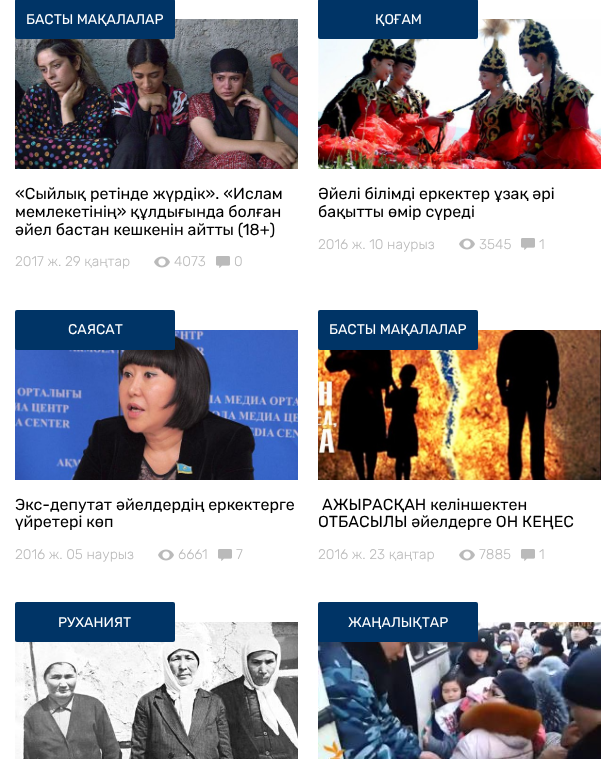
async function draw(canvas) {
	canvas.width = 616;
	canvas.height = 759;
	const c = canvas.getContext('2d');
	c.miterLimit = 4;
	c.fontKerning = 'normal';
	async function loadImage(src) {
		const img = new Image();
		img.src = src;
		await img.decode();
		return img;
	}

	c.fillStyle = '#fff';
	c.fillRect(0, 0, 616, 759);
	c.drawImage(await loadImage('img1.png'), 15, 19, 283, 150);
	c.fillStyle = '#003466';
	c.beginPath();
	c.roundRect(15, -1, 160, 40, 2);
	c.fill();
	c.font = '14px Rubik';
	c.fillStyle = '#fff';
	c.fillText('БАСТЫ МАҚАЛАЛАР', 26, 24);
	c.font = '16px Rubik';
	c.fillStyle = '#000';
	for (const [text, x, y] of [
		['«Сыйлық ретінде жүрдік». «Ислам', 15, 199],
		['мемлекетінің» құлдығында болған', 15, 217],
		['әйел бастан кешкенін айтты (18+)', 15, 235],
	]) {
		c.fillText(text, x, y);
	}
	c.font = '300 14px Rubik';
	c.fillStyle = '#bababa';
	c.fillText('2017 ж. 29 қаңтар', 15, 266);
	c.drawImage(await loadImage('img2.png'), 154, 256, 16, 12);
	c.fillText('4073', 174, 266);
	c.drawImage(await loadImage('img3.png'), 216, 256, 14, 12);
	c.fillText('0', 234, 266);
	c.drawImage(await loadImage('img4.png'), 318, 19, 283, 150);
	c.fillStyle = '#003466';
	c.beginPath();
	c.roundRect(318, -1, 160, 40, 2);
	c.fill();
	c.font = '14px Rubik';
	c.fillStyle = '#fff';
	c.fillText('ҚОҒАМ', 375, 24);
	c.font = '16px Rubik';
	c.fillStyle = '#000';
	c.fillText('Әйелі білімді еркектер ұзақ әрі', 318, 199);
	c.fillText('бақытты өмір сүреді', 318, 217);
	c.font = '300 14px Rubik';
	c.fillStyle = '#bababa';
	c.fillText('2016 ж. 10 наурыз', 318, 249);
	c.drawImage(await loadImage('img2.png'), 459, 238, 16, 12);
	c.fillText('3545', 479, 249);
	c.drawImage(await loadImage('img3.png'), 521, 238, 14, 12);
	c.fillText('1', 539, 249);
	c.drawImage(await loadImage('img5.png'), 15, 330, 283, 150);
	c.fillStyle = '#003466';
	c.beginPath();
	c.roundRect(15, 310, 160, 40, 2);
	c.fill();
	c.font = '14px Rubik';
	c.fillStyle = '#fff';
	c.fillText('САЯСАТ', 68, 334);
	c.font = '16px Rubik';
	c.fillStyle = '#000';
	c.fillText('Экс-депутат әйелдердің еркектерге', 15, 510);
	c.fillText('үйретері көп', 15, 527);
	c.font = '300 14px Rubik';
	c.fillStyle = '#bababa';
	c.fillText('2016 ж. 05 наурыз', 15, 559);
	c.drawImage(await loadImage('img2.png'), 158, 549, 16, 12);
	c.fillText('6661', 178, 559);
	c.drawImage(await loadImage('img3.png'), 218, 549, 14, 12);
	c.fillText('7', 236, 559);
	c.drawImage(await loadImage('img6.png'), 318, 330, 283, 150);
	c.fillStyle = '#003466';
	c.beginPath();
	c.roundRect(318, 310, 160, 40, 2);
	c.fill();
	c.font = '14px Rubik';
	c.fillStyle = '#fff';
	c.fillText('БАСТЫ МАҚАЛАЛАР', 329, 334);
	c.font = '16px Rubik';
	c.fillStyle = '#000';
	c.fillText('АЖЫРАСҚАН келіншектен', 322, 510);
	c.fillText('ОТБАСЫЛЫ әйелдерге ОН КЕҢЕС', 318, 527);
	c.font = '300 14px Rubik';
	c.fillStyle = '#bababa';
	c.fillText('2016 ж. 23 қаңтар', 318, 559);
	c.drawImage(await loadImage('img2.png'), 459, 549, 16, 12);
	c.fillText('7885', 479, 559);
	c.drawImage(await loadImage('img3.png'), 521, 549, 14, 12);
	c.fillText('1', 539, 559);
	c.drawImage(await loadImage('img7.png'), 15, 622, 283, 137);
	c.fillStyle = '#003466';
	c.beginPath();
	c.roundRect(15, 602, 160, 40, 2);
	c.fill();
	c.font = '14px Rubik';
	c.fillStyle = '#fff';
	c.fillText('РУХАНИЯТ', 58, 627);
	c.drawImage(await loadImage('img8.png'), 318, 622, 283, 137);
	c.fillStyle = '#003466';
	c.beginPath();
	c.roundRect(318, 602, 160, 40, 2);
	c.fill();
	c.fillStyle = '#fff';
	c.fillText('ЖАҢАЛЫҚТАР', 348, 627);
}

draw(document.querySelector('canvas'));
